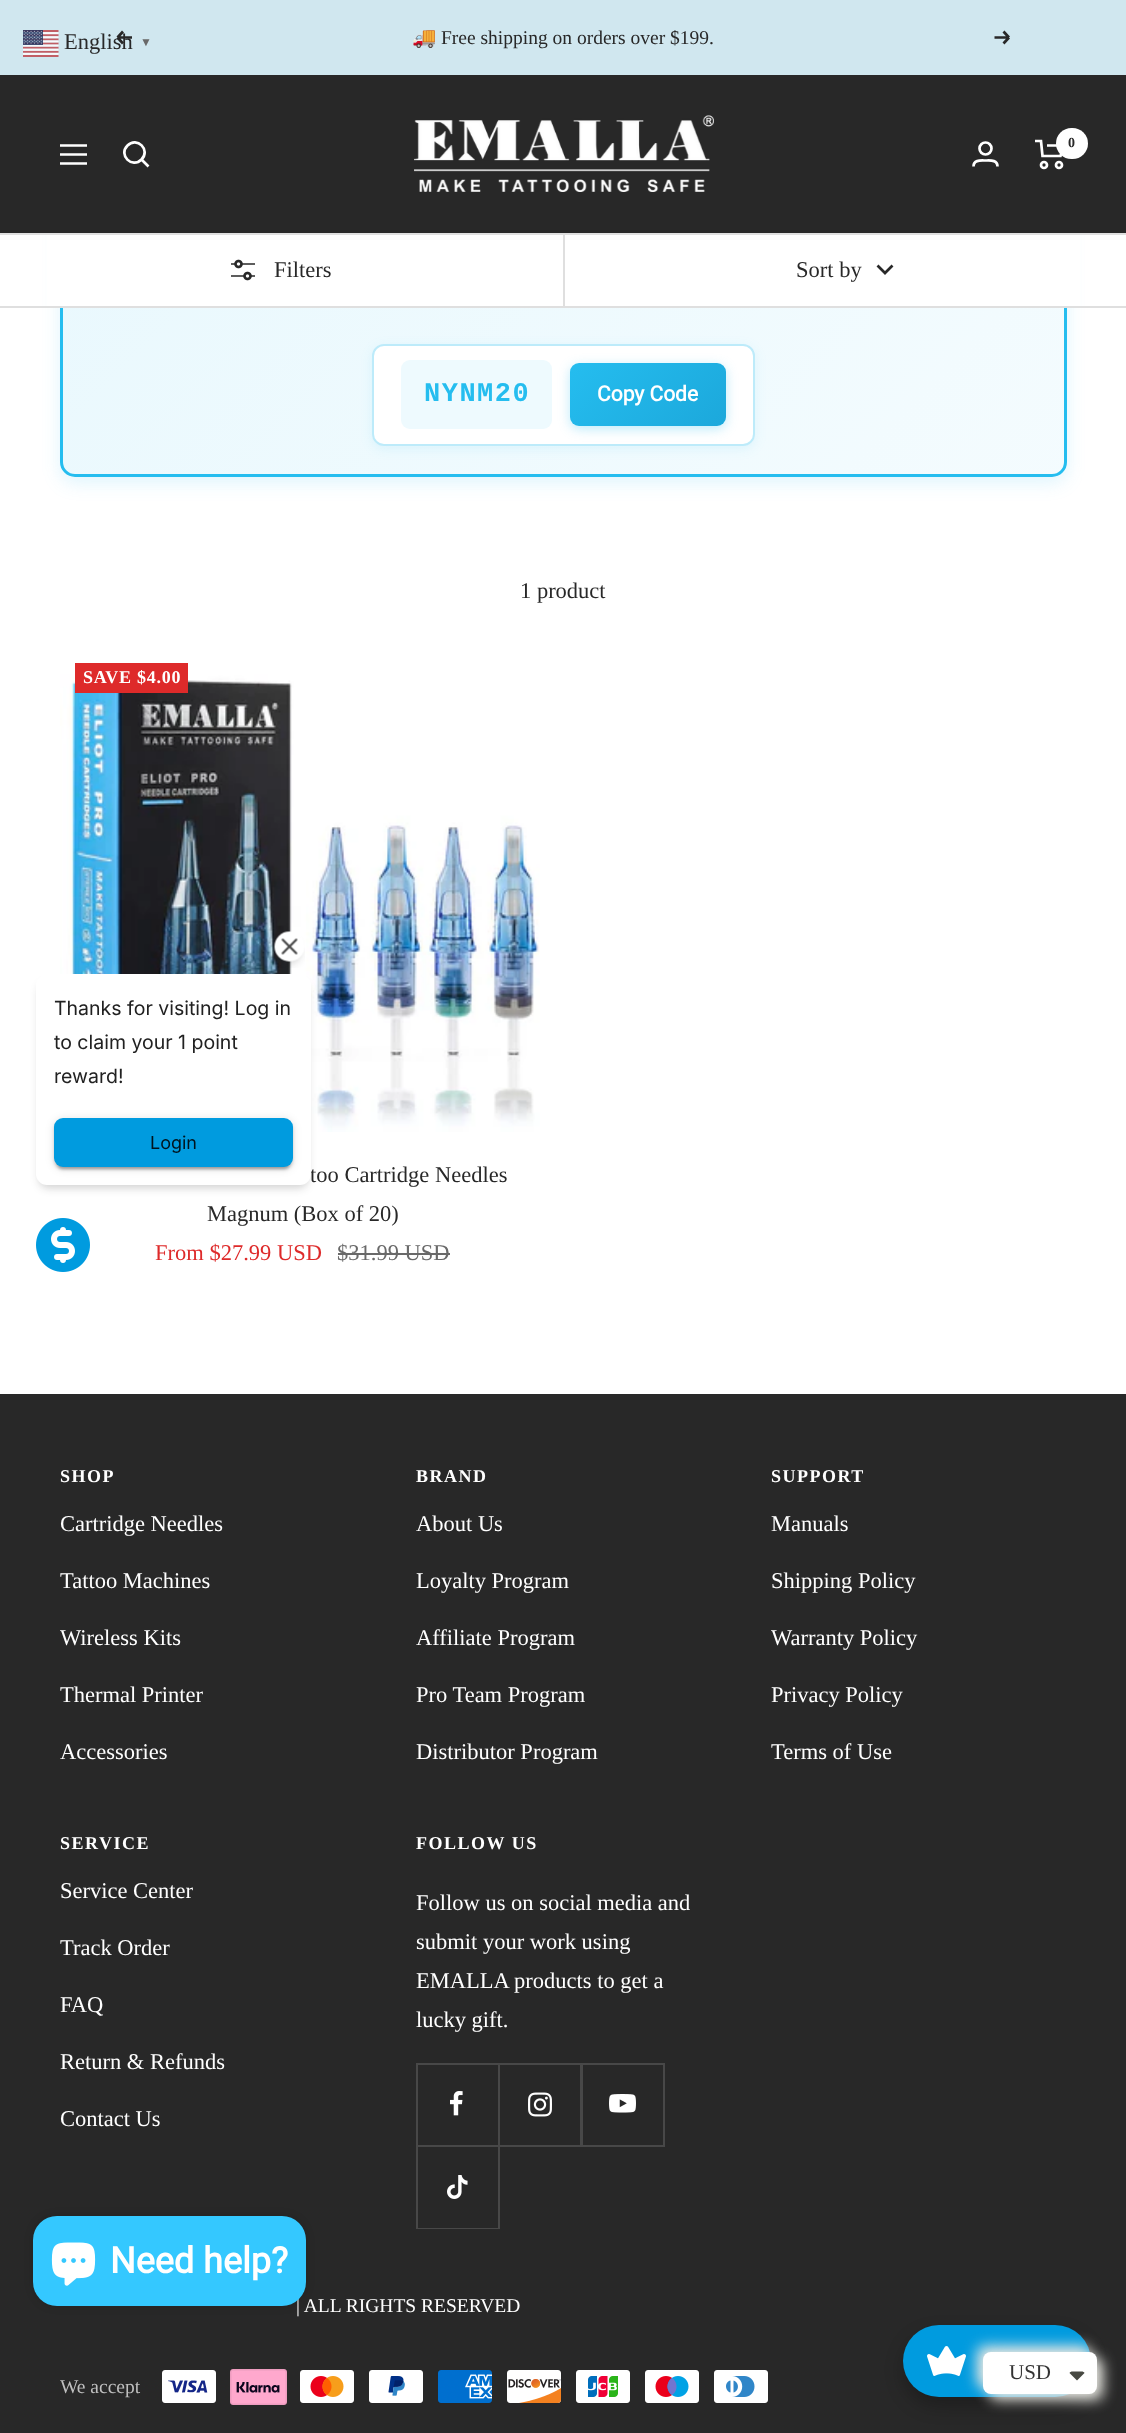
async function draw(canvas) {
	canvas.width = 1126;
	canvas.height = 2433;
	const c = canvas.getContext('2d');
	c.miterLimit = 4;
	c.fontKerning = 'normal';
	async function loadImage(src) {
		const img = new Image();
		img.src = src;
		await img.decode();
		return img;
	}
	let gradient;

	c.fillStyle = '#fff';
	c.fillRect(0, 0, 1126, 2433);
	c.fillStyle = '#d0e7ef';
	c.fillRect(0, 0, 1126, 75);
	c.drawImage(await loadImage('img1.png'), 23, 30, 36, 27);
	c.beginPath();
	c.moveTo(132, 37.5);
	c.lineTo(117.5, 37.5);
	c.moveTo(117.5, 37.5);
	c.lineTo(123, 43.5);
	c.moveTo(117.5, 37.5);
	c.lineTo(123, 31.5);
	c.strokeStyle = '#282828';
	c.lineWidth = 2.7;
	c.stroke();
	c.font = '22.5px Liberation Serif';
	c.fillStyle = '#282828';
	c.fillText('English', 64, 49);
	c.font = 'bold 12px Liberation Serif';
	c.fillStyle = '#696969';
	c.fillText('▼', 140, 46);
	c.font = '19.5px Noto Color Emoji';
	c.fillStyle = '#282828';
	c.fillText('🚚', 412, 44);
	c.font = '19.5px Liberation Serif';
	c.fillText('Free shipping on orders over $199.', 441, 44);
	c.beginPath();
	c.moveTo(994.5, 37.5);
	c.lineTo(1009, 37.5);
	c.moveTo(1009, 37.5);
	c.lineTo(1003.5, 43.5);
	c.moveTo(1009, 37.5);
	c.lineTo(1003.5, 31.5);
	c.stroke();
	c.save();
	c.beginPath();
	c.moveTo(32, 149);
	c.lineTo(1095, 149);
	c.lineTo(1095, 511);
	c.lineTo(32, 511);
	c.closePath();
	c.moveTo(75, 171);
	c.lineTo(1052, 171);
	c.bezierCurveTo(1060.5, 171, 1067, 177.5, 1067, 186);
	c.lineTo(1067, 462);
	c.bezierCurveTo(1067, 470.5, 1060.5, 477, 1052, 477);
	c.lineTo(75, 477);
	c.bezierCurveTo(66.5, 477, 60, 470.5, 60, 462);
	c.lineTo(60, 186);
	c.bezierCurveTo(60, 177.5, 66.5, 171, 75, 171);
	c.closePath();
	c.clip('evenodd');
	c.fillStyle = '#25bdef26';
	c.filter = 'blur(9px)';
	c.beginPath();
	c.roundRect(60, 177, 1007, 306, 15);
	c.fill();
	c.filter = 'none';
	c.restore();
	c.save();
	c.beginPath();
	c.roundRect(60, 171, 1007, 306, 15);
	c.clip();
	gradient = c.createLinearGradient(238, -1.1, 888, 649);
	gradient.addColorStop(0, '#25bdef1a');
	gradient.addColorStop(1, '#25bdef0d');
	c.fillStyle = gradient;
	c.fillRect(63, 308, 1001, 166);
	c.restore();
	c.beginPath();
	c.roundRect(61.5, 172.5, 1004, 303, 13.5);
	c.strokeStyle = '#25bdef';
	c.lineWidth = 3;
	c.stroke();
	c.fillRect(0, 75, 1126, 158);
	c.beginPath();
	c.moveTo(60, 145.5);
	c.lineTo(87, 145.5);
	c.moveTo(60, 163.5);
	c.lineTo(87, 163.5);
	c.closePath();
	c.moveTo(60, 154.5);
	c.lineTo(87, 154.5);
	c.closePath();
	c.strokeStyle = '#fff';
	c.lineWidth = 2.7;
	c.stroke();
	c.beginPath();
	c.moveTo(141.5, 159.5);
	c.bezierCurveTo(151, 150, 137, 136, 127.5, 145.5);
	c.bezierCurveTo(118, 155, 132, 169, 141.5, 159.5);
	c.closePath();
	c.moveTo(141.5, 159.5);
	c.lineTo(148.5, 166.5);
	c.stroke();
	c.drawImage(await loadImage('img2.png'), 414, 115, 300, 77);
	c.beginPath();
	c.arc(985.5, 148.5, 6, 0, 2 * Math.PI);
	c.stroke();
	c.beginPath();
	c.moveTo(973.5, 166.5);
	c.bezierCurveTo(973.5, 159.5, 981, 160.5, 985.5, 160.5);
	c.bezierCurveTo(990, 160.5, 997.5, 159.5, 997.5, 166.5);
	c.stroke();
	c.beginPath();
	c.moveTo(1035, 141);
	c.lineTo(1041, 141);
	c.lineTo(1042.5, 156);
	c.lineTo(1060.5, 156);
	c.lineTo(1063.5, 145.5);
	c.lineTo(1047, 145.5);
	c.stroke();
	c.beginPath();
	c.arc(1044, 165, 3, 0, 2 * Math.PI);
	c.stroke();
	c.beginPath();
	c.arc(1059, 165, 3, 0, 2 * Math.PI);
	c.stroke();
	c.fillStyle = '#fff';
	c.beginPath();
	c.roundRect(1056, 128, 32, 31, 15.5);
	c.fill();
	c.font = 'bold 14px Liberation Serif';
	c.fillStyle = '#282828';
	c.fillText('0', 1068, 147);
	for (const [x, y, w, h, color] of [
		[47, 235, 516, 71, '#fff'],
		[0, 233, 1126, 2, '#dfdfdf'],
		[0, 306, 1126, 2, '#dfdfdf'],
	]) {
		c.fillStyle = color;
		c.fillRect(x, y, w, h);
	}
	c.drawImage(await loadImage('img3.png'), 231, 259, 24, 22);
	c.font = '22.5px Liberation Serif';
	c.fillStyle = '#282828';
	c.fillText('Filters', 274, 277);
	c.fillStyle = '#fff';
	c.fillRect(565, 235, 515, 71);
	c.fillStyle = '#dfdfdf';
	c.fillRect(563, 233, 2, 75);
	c.fillStyle = '#282828';
	c.fillText('Sort by', 796, 277);
	c.beginPath();
	c.moveTo(877.5, 265.5);
	c.lineTo(885, 273);
	c.lineTo(892.5, 265.5);
	c.strokeStyle = '#282828';
	c.stroke();
	c.fillStyle = '#25bdef1a';
	c.filter = 'blur(6px)';
	c.beginPath();
	c.roundRect(372, 347, 383, 102, 12);
	c.fill();
	c.filter = 'none';
	c.fillStyle = '#fff';
	c.beginPath();
	c.roundRect(372, 344, 383, 102, 12);
	c.fill();
	c.beginPath();
	c.roundRect(373, 345, 381, 100, 11);
	c.strokeStyle = '#25bdef4d';
	c.lineWidth = 2;
	c.stroke();
	c.fillStyle = '#eefafe';
	c.beginPath();
	c.roundRect(401, 360, 151, 69, 9);
	c.fill();
	c.letterSpacing = '1.5px';
	c.font = 'bold 27px Liberation Mono';
	c.fillStyle = '#25bdef';
	c.fillText('NYNM20', 424, 401);
	c.fillStyle = '#25bdef4d';
	c.filter = 'blur(6px)';
	c.beginPath();
	c.roundRect(570, 366, 156, 63, 9);
	c.fill();
	c.filter = 'none';
	gradient = c.createLinearGradient(593, 340, 703, 449);
	gradient.addColorStop(0, '#25bdef');
	gradient.addColorStop(1, '#1ca8db');
	c.fillStyle = gradient;
	c.beginPath();
	c.roundRect(570, 363, 156, 63, 9);
	c.fill();
	c.letterSpacing = '0px';
	c.font = 'bold 21px Roboto';
	c.fillStyle = '#fff';
	c.fillText('Copy Code', 597, 401);
	c.font = '22.5px Liberation Serif';
	c.fillStyle = '#282828';
	c.fillText('1 product', 520, 598);
	c.drawImage(await loadImage('img4.png'), 60, 674, 480, 458);
	c.fillStyle = '#de2a2a';
	c.fillRect(75, 663, 113, 30);
	c.letterSpacing = '0.75px';
	c.font = 'bold 18px Liberation Serif';
	c.fillStyle = '#fff';
	c.fillText('SAVE $4.00', 83, 683);
	c.letterSpacing = '0px';
	c.font = '22.5px Liberation Serif';
	c.fillStyle = '#282828';
	c.fillText('too Cartridge Needles', 310, 1182);
	c.fillText('Magnum (Box of 20)', 207, 1221);
	c.fillStyle = '#de2a2a';
	c.fillText('From $27.99 USD', 155, 1260);
	c.fillStyle = '#696969';
	c.fillText('$31.99 USD', 337, 1260);
	c.fillRect(338, 1253, 112, 2);
	c.fillStyle = '#1a1a1a33';
	c.filter = 'blur(4.5px)';
	c.beginPath();
	c.roundRect(39, 983, 269, 205, 9);
	c.fill();
	c.filter = 'none';
	c.drawImage(await loadImage('img5.png'), 274, 931, 31, 37);
	c.fillStyle = '#fff';
	c.beginPath();
	c.roundRect(36, 974, 275, 211, 11);
	c.fill();
	c.font = '19.5px Inter';
	c.fillStyle = '#212121';
	for (const [text, x, y] of [
		['Thanks for visiting! Log in', 54, 1015],
		['to claim your 1 point', 54, 1049],
		['reward!', 54, 1083],
	]) {
		c.fillText(text, x, y);
	}
	c.fillStyle = '#0000001f';
	c.filter = 'blur(4px)';
	c.beginPath();
	c.roundRect(54, 1119, 239, 50, 9);
	c.fill();
	c.filter = 'none';
	c.fillStyle = '#00000024';
	c.filter = 'blur(1.5px)';
	c.beginPath();
	c.roundRect(54, 1121, 239, 49, 9);
	c.fill();
	c.filter = 'none';
	c.fillStyle = '#00000033';
	c.filter = 'blur(1px)';
	c.beginPath();
	c.roundRect(57, 1125, 233, 44, 6);
	c.fill();
	c.filter = 'none';
	c.fillStyle = '#009bdf';
	c.beginPath();
	c.roundRect(54, 1118, 239, 49, 9);
	c.fill();
	c.font = '18px Inter';
	c.fillStyle = '#00141d';
	c.fillText('Login', 150, 1149);
	c.drawImage(await loadImage('img6.png'), 36, 1218, 54, 54);
	c.fillStyle = '#282828';
	c.fillRect(0, 1394, 1126, 1039);
	c.fillStyle = '#00000040';
	c.filter = 'blur(9px)';
	c.beginPath();
	c.roundRect(903, 2334, 188, 72, 36);
	c.fill();
	c.filter = 'none';
	c.fillStyle = '#009bdf';
	c.beginPath();
	c.roundRect(903, 2325, 188, 72, 36);
	c.fill();
	c.drawImage(await loadImage('img7.png'), 927, 2346, 39, 30);
	c.letterSpacing = '1.5px';
	c.font = 'bold 18px Liberation Serif';
	c.fillStyle = '#fff';
	c.fillText('SHOP', 60, 1482);
	c.letterSpacing = '0px';
	c.font = '22.5px Liberation Serif';
	for (const [text, x, y] of [
		['Cartridge Needles', 60, 1531],
		['Tattoo Machines', 60, 1588],
		['Wireless Kits', 60, 1645],
		['Thermal Printer', 60, 1702],
		['Accessories', 60, 1759],
	]) {
		c.fillText(text, x, y);
	}
	c.letterSpacing = '1.5px';
	c.font = 'bold 18px Liberation Serif';
	c.fillText('BRAND', 416, 1482);
	c.letterSpacing = '0px';
	c.font = '22.5px Liberation Serif';
	for (const [text, x, y] of [
		['About Us', 416, 1531],
		['Loyalty Program', 416, 1588],
		['Affiliate Program', 416, 1645],
		['Pro Team Program', 416, 1702],
		['Distributor Program', 416, 1759],
	]) {
		c.fillText(text, x, y);
	}
	c.letterSpacing = '1.5px';
	c.font = 'bold 18px Liberation Serif';
	c.fillText('SUPPORT', 771, 1482);
	c.letterSpacing = '0px';
	c.font = '22.5px Liberation Serif';
	for (const [text, x, y] of [
		['Manuals', 771, 1531],
		['Shipping Policy', 771, 1588],
		['Warranty Policy', 771, 1645],
		['Privacy Policy', 771, 1702],
		['Terms of Use', 771, 1759],
	]) {
		c.fillText(text, x, y);
	}
	c.letterSpacing = '1.5px';
	c.font = 'bold 18px Liberation Serif';
	c.fillText('SERVICE', 60, 1849);
	c.letterSpacing = '0px';
	c.font = '22.5px Liberation Serif';
	for (const [text, x, y] of [
		['Service Center', 60, 1898],
		['Track Order', 60, 1955],
		['FAQ', 60, 2012],
		['Return & Refunds', 60, 2069],
		['Contact Us', 60, 2126],
	]) {
		c.fillText(text, x, y);
	}
	c.letterSpacing = '1.5px';
	c.font = 'bold 18px Liberation Serif';
	c.fillText('FOLLOW US', 416, 1849);
	c.letterSpacing = '0px';
	c.font = '22.5px Liberation Serif';
	for (const [text, x, y] of [
		['Follow us on social media and', 416, 1910],
		['submit your work using', 416, 1949],
		['EMALLA products to get a', 416, 1988],
		['lucky gift.', 416, 2027],
	]) {
		c.fillText(text, x, y);
	}
	c.fillStyle = '#484848';
	c.beginPath();
	c.moveTo(417, 2145);
	c.lineTo(417, 2147);
	c.lineTo(500, 2147);
	c.lineTo(500, 2064);
	c.lineTo(498, 2064);
	c.lineTo(498, 2145);
	c.closePath();
	c.fill();
	for (const [x, y, w, h, color] of [
		[416, 2145, 1, 2, '#484848'],
		[498, 2063, 2, 1, '#484848'],
		[416, 2063, 82, 2, '#484848'],
		[416, 2063, 2, 82, '#484848'],
	]) {
		c.fillStyle = color;
		c.fillRect(x, y, w, h);
	}
	c.drawImage(await loadImage('img8.png'), 450, 2091, 13, 25);
	c.beginPath();
	c.moveTo(500, 2145);
	c.lineTo(500, 2147);
	c.lineTo(582, 2147);
	c.lineTo(582, 2064);
	c.lineTo(580, 2064);
	c.lineTo(580, 2145);
	c.closePath();
	c.fill();
	c.fillRect(580, 2063, 1, 1);
	c.fillRect(498, 2063, 83, 2);
	c.drawImage(await loadImage('img9.png'), 528, 2092, 24, 25);
	c.beginPath();
	c.moveTo(582, 2145);
	c.lineTo(582, 2147);
	c.lineTo(665, 2147);
	c.lineTo(665, 2064);
	c.lineTo(663, 2064);
	c.lineTo(663, 2145);
	c.closePath();
	c.fill();
	for (const [x, y, w, h, color] of [
		[663, 2063, 2, 1, '#484848'],
		[581, 2063, 82, 2, '#484848'],
		[582, 2063, 1, 82, '#484848'],
	]) {
		c.fillStyle = color;
		c.fillRect(x, y, w, h);
	}
	c.drawImage(await loadImage('img10.png'), 609, 2094, 27, 19);
	c.beginPath();
	c.moveTo(417, 2228);
	c.lineTo(417, 2229);
	c.lineTo(500, 2229);
	c.lineTo(500, 2147);
	c.lineTo(498, 2147);
	c.lineTo(498, 2228);
	c.closePath();
	c.fill();
	c.fillRect(416, 2228, 1, 1);
	c.fillRect(416, 2145, 2, 83);
	c.drawImage(await loadImage('img11.png'), 447, 2175, 21, 24);
	c.font = '19.5px Liberation Serif';
	c.fillStyle = '#fff';
	c.fillText('| ALL RIGHTS RESERVED', 296, 2312);
	c.fillStyle = '#bfbfbf';
	c.fillText('We accept', 60, 2393);
	c.drawImage(await loadImage('img12.png'), 162, 2370, 54, 33);
	c.drawImage(await loadImage('img13.png'), 230, 2369, 57, 36);
	c.drawImage(await loadImage('img14.png'), 300, 2370, 54, 33);
	c.drawImage(await loadImage('img15.png'), 369, 2370, 54, 33);
	c.drawImage(await loadImage('img16.png'), 438, 2370, 54, 33);
	c.drawImage(await loadImage('img17.png'), 507, 2370, 55, 33);
	c.drawImage(await loadImage('img18.png'), 576, 2370, 54, 33);
	c.drawImage(await loadImage('img19.png'), 645, 2370, 54, 33);
	c.drawImage(await loadImage('img20.png'), 714, 2370, 54, 33);
	c.fillStyle = '#00000026';
	c.filter = 'blur(4px)';
	c.beginPath();
	c.roundRect(33, 2216, 273, 90, 24);
	c.fill();
	c.filter = 'none';
	c.fillStyle = '#34c8ff';
	c.beginPath();
	c.roundRect(33, 2216, 273, 90, 24);
	c.fill();
	c.drawImage(await loadImage('img21.png'), 51, 2242, 45, 44);
	c.font = 'bold 36px Roboto';
	c.fillStyle = '#fff';
	c.fillText('Need help?', 110, 2273);
	c.fillStyle = '#e8e8e2';
	c.filter = 'blur(7px)';
	c.beginPath();
	c.roundRect(977, 2346, 114, 42, 8);
	c.fill();
	c.filter = 'none';
	c.filter = 'blur(7px)';
	c.beginPath();
	c.roundRect(989, 2358, 114, 42, 8);
	c.fill();
	c.filter = 'none';
	c.fillStyle = '#fff';
	c.beginPath();
	c.roundRect(983, 2352, 114, 42, 8);
	c.fill();
	c.font = '21px Liberation Serif';
	c.fillStyle = '#333';
	c.fillText('USD', 1009, 2379);
	c.fillStyle = '#474942';
	c.beginPath();
	c.moveTo(1072.5, 2371.5);
	c.bezierCurveTo(1071, 2371.5, 1070, 2372, 1069.5, 2373);
	c.lineTo(1077, 2380.5);
	c.lineTo(1084.5, 2373);
	c.bezierCurveTo(1084, 2372, 1083, 2371.5, 1081.5, 2371.5);
	c.closePath();
	c.fill();
}

draw(document.querySelector('canvas'));
